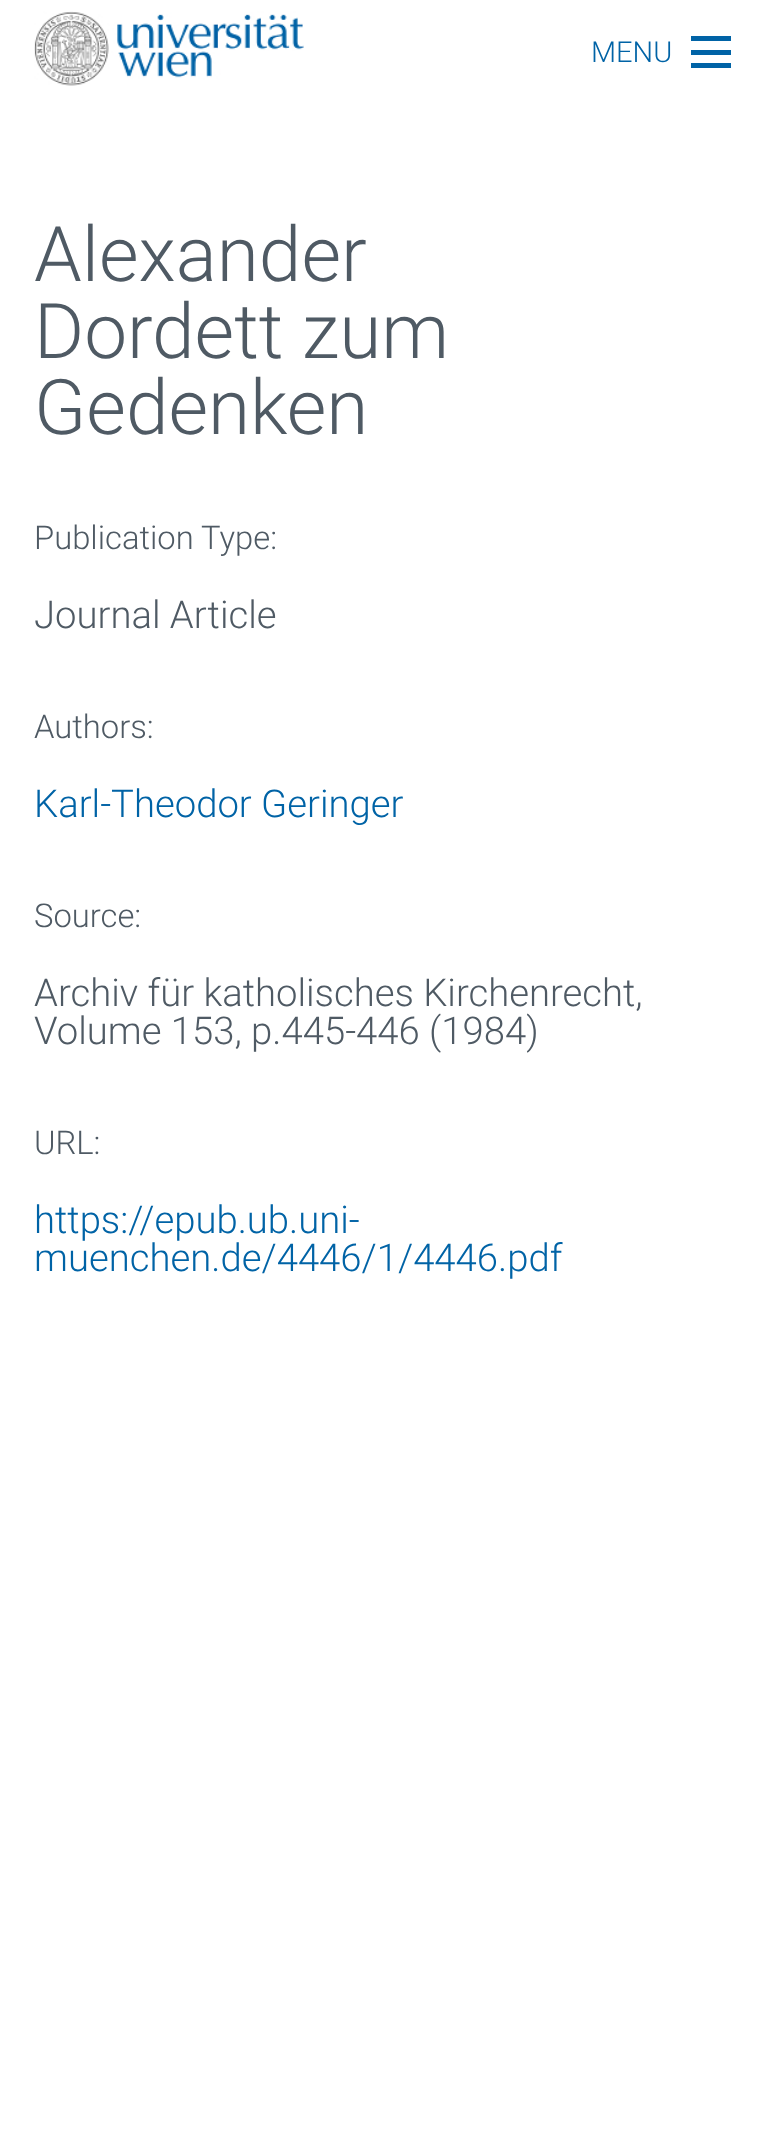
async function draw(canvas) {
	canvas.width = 762;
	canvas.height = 2130;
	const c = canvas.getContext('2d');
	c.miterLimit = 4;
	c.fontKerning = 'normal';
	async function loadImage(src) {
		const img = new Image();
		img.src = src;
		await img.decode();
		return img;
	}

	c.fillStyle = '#fff';
	c.fillRect(0, 0, 762, 2130);
	c.drawImage(await loadImage('img1.png'), 34, 11, 270, 75);
	c.font = '300 29px Roboto';
	c.fillStyle = '#0063a6';
	c.fillText('MENU', 591, 62);
	for (const [x, y, w, h, color] of [
		[691, 63, 40, 5, '#0063a6'],
		[691, 50, 40, 5, '#0063a6'],
		[691, 36, 40, 5, '#0063a6'],
	]) {
		c.fillStyle = color;
		c.fillRect(x, y, w, h);
	}
	c.font = '300 76.5px Roboto';
	c.fillStyle = '#4f5a64';
	for (const [text, x, y] of [
		['Alexander', 34, 281],
		['Dordett zum', 34, 358],
		['Gedenken', 34, 434],
	]) {
		c.fillText(text, x, y);
	}
	c.font = '300 32.75px Roboto';
	c.fillText('Publication Type:', 34, 549);
	c.font = '300 38.25px Roboto';
	c.fillText('Journal Article', 34, 628);
	c.font = '300 32.75px Roboto';
	c.fillText('Authors:', 34, 738);
	c.font = '300 38.25px Roboto';
	c.fillStyle = '#0063a6';
	c.fillText('Karl-Theodor Geringer', 34, 817);
	c.font = '300 32.75px Roboto';
	c.fillStyle = '#4f5a64';
	c.fillText('Source:', 34, 927);
	c.font = '300 38.25px Roboto';
	c.fillText('Archiv für katholisches Kirchenrecht,', 34, 1006);
	c.fillText('Volume 153, p.445-446 (1984)', 34, 1044);
	c.font = '300 32.75px Roboto';
	c.fillText('URL:', 34, 1154);
	c.font = '300 38.25px Roboto';
	c.fillStyle = '#0063a6';
	c.fillText('https://epub.ub.uni-', 34, 1233);
	c.fillText('muenchen.de/4446/1/4446.pdf', 34, 1271);
}

draw(document.querySelector('canvas'));
